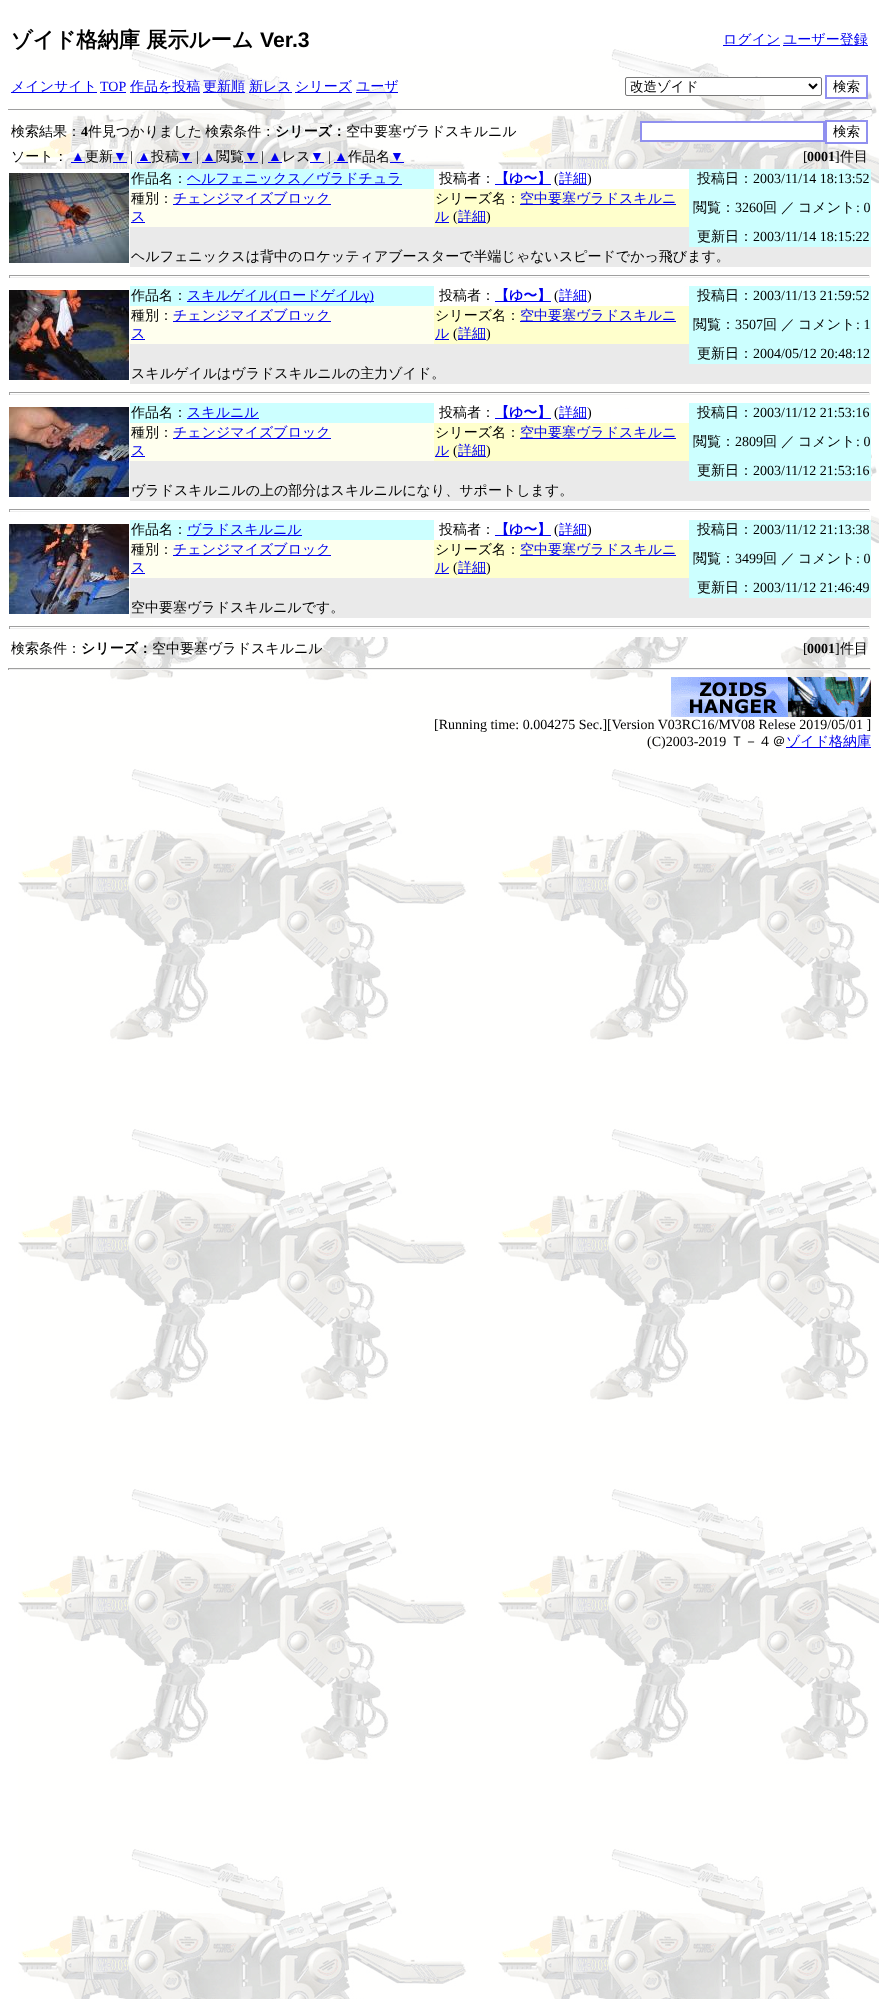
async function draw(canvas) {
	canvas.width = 879;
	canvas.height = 1999;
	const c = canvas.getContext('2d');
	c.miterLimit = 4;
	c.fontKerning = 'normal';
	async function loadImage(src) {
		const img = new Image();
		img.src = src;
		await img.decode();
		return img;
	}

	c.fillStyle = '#fff';
	c.fillRect(0, 0, 879, 1999);
	c.drawImage(await loadImage('img1.png'), 18, 49, 861, 1950);
	c.font = 'bold 21.25px WenQuanYi Zen Hei';
	c.fillStyle = '#000';
	c.fillText('ゾイド格納庫 展示ルーム', 11, 47);
	c.font = 'bold 21.25px Liberation Sans';
	c.fillText('Ver.3', 260, 47);
	c.fillStyle = '#00e';
	c.fillRect(723, 45, 57, 1);
	c.font = '500 14px WenQuanYi Zen Hei';
	c.fillText('ログイン', 723, 44);
	c.fillRect(783, 45, 85, 1);
	c.fillText('ユーザー登録', 783, 44);
	c.fillRect(11, 92, 86, 1);
	c.fillText('メインサイト', 11, 91);
	c.font = '14px Liberation Serif';
	c.fillText('TOP', 100, 91);
	c.fillRect(100, 92, 26, 1);
	c.fillRect(130, 92, 70, 1);
	c.font = '500 14px WenQuanYi Zen Hei';
	c.fillText('作品を投稿', 130, 91);
	c.fillRect(203, 92, 42, 1);
	c.fillText('更新順', 203, 91);
	c.fillRect(249, 92, 43, 1);
	c.fillText('新レス', 249, 91);
	c.fillRect(295, 92, 57, 1);
	c.fillText('シリーズ', 295, 91);
	c.fillRect(356, 92, 42, 1);
	c.fillText('ユーザ', 356, 91);
	c.fillStyle = '#fff';
	c.beginPath();
	c.roundRect(625.5, 77.5, 196, 18, 1.5);
	c.fill();
	c.strokeStyle = '#767676';
	c.stroke();
	c.beginPath();
	c.moveTo(809, 84);
	c.lineTo(813, 88);
	c.lineTo(817, 84);
	c.strokeStyle = '#000';
	c.lineWidth = 2;
	c.stroke();
	c.font = '500 13.5px WenQuanYi Zen Hei';
	c.fillStyle = '#000';
	c.fillText('改造ゾイド', 630, 91);
	c.fillStyle = '#fff';
	c.fillRect(839, 86, 27, 11);
	c.strokeStyle = '#9090ef';
	c.strokeRect(826, 76, 41, 22);
	c.fillStyle = '#000';
	c.fillText('検索', 833, 91);
	c.fillStyle = '#9f9f9f';
	c.fillRect(8, 109, 865, 1);
	c.fillStyle = '#eee';
	c.fillRect(872, 109, 1, 1);
	c.font = '500 14px WenQuanYi Zen Hei';
	c.fillStyle = '#000';
	c.fillText('検索結果：', 11, 136);
	c.font = 'bold 14px Liberation Serif';
	c.fillText('4', 81, 136);
	c.wordSpacing = '-1px';
	c.font = '500 14px WenQuanYi Zen Hei';
	c.fillText('件見つかりました 検索条件：', 88, 136);
	c.wordSpacing = '0px';
	c.font = 'bold 14px WenQuanYi Zen Hei';
	c.fillText('シリーズ：', 275, 136);
	c.font = '500 14px WenQuanYi Zen Hei';
	c.fillText('空中要塞ヴラドスキルニル', 346, 136);
	c.fillStyle = '#fff';
	c.beginPath();
	c.rect(641, 122, 183, 19);
	c.fill();
	c.stroke();
	c.fillRect(827, 122, 34, 20);
	c.strokeRect(826, 121, 41, 22);
	c.font = '500 13.5px WenQuanYi Zen Hei';
	c.fillStyle = '#000';
	c.fillText('検索', 833, 136);
	c.font = '500 14px WenQuanYi Zen Hei';
	c.fillText('ソート：', 11, 161);
	c.font = '14px Liberation Serif';
	c.fillStyle = '#00e';
	c.fillText('▲', 71, 161);
	c.fillRect(71, 162, 14, 1);
	c.font = '500 14px WenQuanYi Zen Hei';
	c.fillStyle = '#000';
	c.fillText('更新', 85, 161);
	c.font = '14px Liberation Serif';
	c.fillStyle = '#00e';
	c.fillText('▼', 113, 161);
	c.fillRect(113, 162, 14, 1);
	c.fillStyle = '#000';
	c.fillText('|', 130, 161);
	c.fillStyle = '#00e';
	c.fillText('▲', 137, 161);
	c.fillRect(137, 162, 14, 1);
	c.font = '500 14px WenQuanYi Zen Hei';
	c.fillStyle = '#000';
	c.fillText('投稿', 151, 161);
	c.font = '14px Liberation Serif';
	c.fillStyle = '#00e';
	c.fillText('▼', 179, 161);
	c.fillRect(179, 162, 13, 1);
	c.fillStyle = '#000';
	c.fillText('|', 196, 161);
	c.fillStyle = '#00e';
	c.fillText('▲', 202, 161);
	c.fillRect(202, 162, 14, 1);
	c.font = '500 14px WenQuanYi Zen Hei';
	c.fillStyle = '#000';
	c.fillText('閲覧', 216, 161);
	c.font = '14px Liberation Serif';
	c.fillStyle = '#00e';
	c.fillText('▼', 244, 161);
	c.fillRect(244, 162, 14, 1);
	c.fillStyle = '#000';
	c.fillText('|', 261, 161);
	c.fillStyle = '#00e';
	c.fillText('▲', 268, 161);
	c.fillRect(268, 162, 14, 1);
	c.font = '500 14px WenQuanYi Zen Hei';
	c.fillStyle = '#000';
	c.fillText('レス', 282, 161);
	c.font = '14px Liberation Serif';
	c.fillStyle = '#00e';
	c.fillText('▼', 310, 161);
	c.fillRect(310, 162, 14, 1);
	c.fillStyle = '#000';
	c.fillText('|', 328, 161);
	c.fillStyle = '#00e';
	c.fillText('▲', 334, 161);
	c.fillRect(334, 162, 14, 1);
	c.font = '500 14px WenQuanYi Zen Hei';
	c.fillStyle = '#000';
	c.fillText('作品名', 348, 161);
	c.font = '14px Liberation Serif';
	c.fillStyle = '#00e';
	c.fillText('▼', 390, 161);
	c.fillRect(390, 162, 14, 1);
	c.fillStyle = '#000';
	c.fillText('[', 803, 161);
	c.font = 'bold 14px Liberation Serif';
	c.fillText('0001', 807, 161);
	c.font = '14px Liberation Serif';
	c.fillText(']', 835, 161);
	c.font = '500 14px WenQuanYi Zen Hei';
	c.fillText('件目', 840, 161);
	c.fillStyle = '#fff';
	c.fillRect(22, 169, 108, 39);
	c.drawImage(await loadImage('img2.png'), 9, 173, 120, 90);
	c.fillStyle = '#cff';
	c.fillRect(130, 169, 304, 20);
	c.fillStyle = '#000';
	c.fillText('作品名：', 131, 183);
	c.fillStyle = '#00e';
	c.fillRect(187, 184, 215, 1);
	c.fillText('ヘルフェニックス／ヴラドチュラ', 187, 183);
	c.fillStyle = '#fff';
	c.fillRect(434, 169, 255, 20);
	c.fillStyle = '#000';
	c.fillText('投稿者：', 439, 183);
	c.fillStyle = '#00e';
	c.fillRect(495, 184, 56, 1);
	c.font = 'bold 14px WenQuanYi Zen Hei';
	c.fillText('【ゆ〜】', 495, 183);
	c.font = '14px Liberation Serif';
	c.fillStyle = '#000';
	c.fillText('(', 554, 183);
	c.fillStyle = '#00e';
	c.fillRect(559, 184, 28, 1);
	c.font = '500 14px WenQuanYi Zen Hei';
	c.fillText('詳細', 559, 183);
	c.font = '14px Liberation Serif';
	c.fillStyle = '#000';
	c.fillText(')', 587, 183);
	c.fillStyle = '#cff';
	c.fillRect(689, 169, 182, 78);
	c.font = '500 14px WenQuanYi Zen Hei';
	c.fillStyle = '#000';
	c.fillText('投稿日：', 697, 183);
	c.font = '14px Liberation Serif';
	c.fillText('2003/11/14 18:13:52', 753, 183);
	c.fillStyle = '#ffe';
	c.fillRect(130, 189, 304, 38);
	c.font = '500 14px WenQuanYi Zen Hei';
	c.fillStyle = '#000';
	c.fillText('種別：', 131, 203);
	c.fillStyle = '#00e';
	c.fillRect(173, 204, 158, 1);
	c.fillText('チェンジマイズブロック', 173, 203);
	c.fillText('ス', 131, 221);
	c.fillRect(131, 222, 14, 1);
	c.fillStyle = '#ffc';
	c.fillRect(434, 189, 255, 38);
	c.fillStyle = '#000';
	c.fillText('シリーズ名：', 435, 203);
	c.fillStyle = '#00e';
	c.fillRect(520, 204, 156, 1);
	c.fillText('空中要塞ヴラドスキルニ', 520, 203);
	c.fillText('ル', 435, 221);
	c.fillRect(435, 222, 14, 1);
	c.font = '14px Liberation Serif';
	c.fillStyle = '#000';
	c.fillText('(', 453, 221);
	c.fillStyle = '#00e';
	c.fillRect(458, 222, 28, 1);
	c.font = '500 14px WenQuanYi Zen Hei';
	c.fillText('詳細', 458, 221);
	c.font = '14px Liberation Serif';
	c.fillStyle = '#000';
	c.fillText(')', 486, 221);
	c.font = '500 14px WenQuanYi Zen Hei';
	c.fillText('閲覧：', 693, 212);
	c.font = '14px Liberation Serif';
	c.fillText('3260', 735, 212);
	c.font = '500 14px WenQuanYi Zen Hei';
	for (const [text, x, y] of [
		['回', 763, 212],
		['／', 781, 212],
		['コメント', 798, 212],
	]) {
		c.fillText(text, x, y);
	}
	c.font = '14px Liberation Serif';
	c.fillText(': 0', 856, 212);
	c.fillStyle = '#eaeaea';
	c.fillRect(130, 227, 559, 20);
	c.font = '500 14px WenQuanYi Zen Hei';
	c.fillStyle = '#000';
	c.fillText('更新日：', 697, 241);
	c.font = '14px Liberation Serif';
	c.fillText('2003/11/14 18:15:22', 753, 241);
	c.fillStyle = '#eaeaea';
	c.fillRect(130, 247, 741, 20);
	c.font = '500 14px WenQuanYi Zen Hei';
	c.fillStyle = '#000';
	c.fillText('ヘルフェニックスは背中のロケッティアブースターで半端じゃないスピードでかっ飛びます。', 131, 261);
	for (const [x, y, w, h, color] of [
		[147, 267, 722, 19, '#fff'],
		[9, 275, 861, 1, '#9f9f9f'],
		[869, 275, 1, 3, '#eee'],
		[9, 277, 861, 1, '#eee'],
		[9, 275, 1, 3, '#9f9f9f'],
		[110, 293, 20, 27, '#fff'],
	]) {
		c.fillStyle = color;
		c.fillRect(x, y, w, h);
	}
	c.drawImage(await loadImage('img3.png'), 9, 290, 120, 90);
	c.fillStyle = '#cff';
	c.fillRect(130, 286, 304, 20);
	c.fillStyle = '#000';
	c.fillText('作品名：', 131, 300);
	c.fillStyle = '#00e';
	c.fillRect(187, 301, 187, 1);
	c.fillText('スキルゲイル', 187, 300);
	c.font = '14px Liberation Serif';
	c.fillText('(', 273, 300);
	c.font = '500 14px WenQuanYi Zen Hei';
	c.fillText('ロードゲイル', 278, 300);
	c.font = '14px Liberation Serif';
	c.fillText('γ)', 363, 300);
	c.fillStyle = '#fff';
	c.fillRect(595, 286, 89, 20);
	c.font = '500 14px WenQuanYi Zen Hei';
	c.fillStyle = '#000';
	c.fillText('投稿者：', 439, 300);
	c.fillStyle = '#00e';
	c.fillRect(495, 301, 56, 1);
	c.font = 'bold 14px WenQuanYi Zen Hei';
	c.fillText('【ゆ〜】', 495, 300);
	c.font = '14px Liberation Serif';
	c.fillStyle = '#000';
	c.fillText('(', 554, 300);
	c.fillStyle = '#00e';
	c.fillRect(559, 301, 28, 1);
	c.font = '500 14px WenQuanYi Zen Hei';
	c.fillText('詳細', 559, 300);
	c.font = '14px Liberation Serif';
	c.fillStyle = '#000';
	c.fillText(')', 587, 300);
	c.fillStyle = '#cff';
	c.fillRect(689, 286, 182, 78);
	c.font = '500 14px WenQuanYi Zen Hei';
	c.fillStyle = '#000';
	c.fillText('投稿日：', 697, 300);
	c.font = '14px Liberation Serif';
	c.fillText('2003/11/13 21:59:52', 753, 300);
	c.fillStyle = '#ffe';
	c.fillRect(130, 306, 304, 38);
	c.font = '500 14px WenQuanYi Zen Hei';
	c.fillStyle = '#000';
	c.fillText('種別：', 131, 320);
	c.fillStyle = '#00e';
	c.fillRect(173, 321, 158, 1);
	c.fillText('チェンジマイズブロック', 173, 320);
	c.fillText('ス', 131, 338);
	c.fillRect(131, 339, 14, 1);
	c.fillStyle = '#ffc';
	c.fillRect(434, 306, 255, 38);
	c.fillStyle = '#000';
	c.fillText('シリーズ名：', 435, 320);
	c.fillStyle = '#00e';
	c.fillRect(520, 321, 156, 1);
	c.fillText('空中要塞ヴラドスキルニ', 520, 320);
	c.fillText('ル', 435, 338);
	c.fillRect(435, 339, 14, 1);
	c.font = '14px Liberation Serif';
	c.fillStyle = '#000';
	c.fillText('(', 453, 338);
	c.fillStyle = '#00e';
	c.fillRect(458, 339, 28, 1);
	c.font = '500 14px WenQuanYi Zen Hei';
	c.fillText('詳細', 458, 338);
	c.font = '14px Liberation Serif';
	c.fillStyle = '#000';
	c.fillText(')', 486, 338);
	c.font = '500 14px WenQuanYi Zen Hei';
	c.fillText('閲覧：', 693, 329);
	c.font = '14px Liberation Serif';
	c.fillText('3507', 735, 329);
	c.font = '500 14px WenQuanYi Zen Hei';
	for (const [text, x, y] of [
		['回', 763, 329],
		['／', 781, 329],
		['コメント', 798, 329],
	]) {
		c.fillText(text, x, y);
	}
	c.font = '14px Liberation Serif';
	c.fillText(': 1', 856, 329);
	c.fillStyle = '#eaeaea';
	c.fillRect(130, 344, 559, 20);
	c.font = '500 14px WenQuanYi Zen Hei';
	c.fillStyle = '#000';
	c.fillText('更新日：', 697, 358);
	c.font = '14px Liberation Serif';
	c.fillText('2004/05/12 20:48:12', 753, 358);
	c.fillStyle = '#eaeaea';
	c.fillRect(130, 364, 741, 20);
	c.font = '500 14px WenQuanYi Zen Hei';
	c.fillStyle = '#000';
	c.fillText('スキルゲイルはヴラドスキルニルの主力ゾイド。', 131, 378);
	for (const [x, y, w, h, color] of [
		[9, 392, 861, 1, '#9f9f9f'],
		[869, 392, 1, 3, '#eee'],
		[9, 394, 861, 1, '#eee'],
		[9, 392, 1, 3, '#9f9f9f'],
		[51, 474, 79, 27, '#fff'],
	]) {
		c.fillStyle = color;
		c.fillRect(x, y, w, h);
	}
	c.drawImage(await loadImage('img4.png'), 9, 407, 120, 90);
	c.fillStyle = '#cff';
	c.fillRect(130, 403, 304, 20);
	c.fillStyle = '#000';
	c.fillText('作品名：', 131, 417);
	c.fillStyle = '#00e';
	c.fillRect(187, 418, 72, 1);
	c.fillText('スキルニル', 187, 417);
	c.fillStyle = '#fff';
	c.fillRect(611, 409, 59, 14);
	c.fillStyle = '#000';
	c.fillText('投稿者：', 439, 417);
	c.fillStyle = '#00e';
	c.fillRect(495, 418, 56, 1);
	c.font = 'bold 14px WenQuanYi Zen Hei';
	c.fillText('【ゆ〜】', 495, 417);
	c.font = '14px Liberation Serif';
	c.fillStyle = '#000';
	c.fillText('(', 554, 417);
	c.fillStyle = '#00e';
	c.fillRect(559, 418, 28, 1);
	c.font = '500 14px WenQuanYi Zen Hei';
	c.fillText('詳細', 559, 417);
	c.font = '14px Liberation Serif';
	c.fillStyle = '#000';
	c.fillText(')', 587, 417);
	c.fillStyle = '#cff';
	c.fillRect(689, 403, 182, 78);
	c.font = '500 14px WenQuanYi Zen Hei';
	c.fillStyle = '#000';
	c.fillText('投稿日：', 697, 417);
	c.font = '14px Liberation Serif';
	c.fillText('2003/11/12 21:53:16', 753, 417);
	c.fillStyle = '#ffe';
	c.fillRect(130, 423, 304, 38);
	c.font = '500 14px WenQuanYi Zen Hei';
	c.fillStyle = '#000';
	c.fillText('種別：', 131, 437);
	c.fillStyle = '#00e';
	c.fillRect(173, 438, 158, 1);
	c.fillText('チェンジマイズブロック', 173, 437);
	c.fillText('ス', 131, 455);
	c.fillRect(131, 456, 14, 1);
	c.fillStyle = '#ffc';
	c.fillRect(434, 423, 255, 38);
	c.fillStyle = '#000';
	c.fillText('シリーズ名：', 435, 437);
	c.fillStyle = '#00e';
	c.fillRect(520, 438, 156, 1);
	c.fillText('空中要塞ヴラドスキルニ', 520, 437);
	c.fillText('ル', 435, 455);
	c.fillRect(435, 456, 14, 1);
	c.font = '14px Liberation Serif';
	c.fillStyle = '#000';
	c.fillText('(', 453, 455);
	c.fillStyle = '#00e';
	c.fillRect(458, 456, 28, 1);
	c.font = '500 14px WenQuanYi Zen Hei';
	c.fillText('詳細', 458, 455);
	c.font = '14px Liberation Serif';
	c.fillStyle = '#000';
	c.fillText(')', 486, 455);
	c.font = '500 14px WenQuanYi Zen Hei';
	c.fillText('閲覧：', 693, 446);
	c.font = '14px Liberation Serif';
	c.fillText('2809', 735, 446);
	c.font = '500 14px WenQuanYi Zen Hei';
	for (const [text, x, y] of [
		['回', 763, 446],
		['／', 781, 446],
		['コメント', 798, 446],
	]) {
		c.fillText(text, x, y);
	}
	c.font = '14px Liberation Serif';
	c.fillText(': 0', 856, 446);
	c.fillStyle = '#eaeaea';
	c.fillRect(130, 461, 559, 20);
	c.font = '500 14px WenQuanYi Zen Hei';
	c.fillStyle = '#000';
	c.fillText('更新日：', 697, 475);
	c.font = '14px Liberation Serif';
	c.fillText('2003/11/12 21:53:16', 753, 475);
	c.fillStyle = '#eaeaea';
	c.fillRect(130, 481, 741, 20);
	c.font = '500 14px WenQuanYi Zen Hei';
	c.fillStyle = '#000';
	c.fillText('ヴラドスキルニルの上の部分はスキルニルになり、サポートします。', 131, 495);
	for (const [x, y, w, h, color] of [
		[21, 501, 850, 19, '#fff'],
		[9, 509, 861, 1, '#9f9f9f'],
		[869, 509, 1, 3, '#eee'],
		[9, 511, 861, 1, '#eee'],
		[9, 509, 1, 3, '#9f9f9f'],
		[18, 520, 112, 48, '#fff'],
	]) {
		c.fillStyle = color;
		c.fillRect(x, y, w, h);
	}
	c.drawImage(await loadImage('img5.png'), 9, 524, 120, 90);
	c.fillStyle = '#cff';
	c.fillRect(130, 520, 304, 20);
	c.fillStyle = '#000';
	c.fillText('作品名：', 131, 534);
	c.fillStyle = '#00e';
	c.fillRect(187, 535, 115, 1);
	c.fillText('ヴラドスキルニル', 187, 534);
	c.fillStyle = '#fff';
	c.fillRect(434, 520, 255, 20);
	c.fillStyle = '#000';
	c.fillText('投稿者：', 439, 534);
	c.fillStyle = '#00e';
	c.fillRect(495, 535, 56, 1);
	c.font = 'bold 14px WenQuanYi Zen Hei';
	c.fillText('【ゆ〜】', 495, 534);
	c.font = '14px Liberation Serif';
	c.fillStyle = '#000';
	c.fillText('(', 554, 534);
	c.fillStyle = '#00e';
	c.fillRect(559, 535, 28, 1);
	c.font = '500 14px WenQuanYi Zen Hei';
	c.fillText('詳細', 559, 534);
	c.font = '14px Liberation Serif';
	c.fillStyle = '#000';
	c.fillText(')', 587, 534);
	c.fillStyle = '#cff';
	c.fillRect(689, 520, 182, 78);
	c.font = '500 14px WenQuanYi Zen Hei';
	c.fillStyle = '#000';
	c.fillText('投稿日：', 697, 534);
	c.font = '14px Liberation Serif';
	c.fillText('2003/11/12 21:13:38', 753, 534);
	c.fillStyle = '#ffe';
	c.fillRect(130, 540, 304, 38);
	c.font = '500 14px WenQuanYi Zen Hei';
	c.fillStyle = '#000';
	c.fillText('種別：', 131, 554);
	c.fillStyle = '#00e';
	c.fillRect(173, 555, 158, 1);
	c.fillText('チェンジマイズブロック', 173, 554);
	c.fillText('ス', 131, 572);
	c.fillRect(131, 573, 14, 1);
	c.fillStyle = '#ffc';
	c.fillRect(434, 540, 255, 38);
	c.fillStyle = '#000';
	c.fillText('シリーズ名：', 435, 554);
	c.fillStyle = '#00e';
	c.fillRect(520, 555, 156, 1);
	c.fillText('空中要塞ヴラドスキルニ', 520, 554);
	c.fillText('ル', 435, 572);
	c.fillRect(435, 573, 14, 1);
	c.font = '14px Liberation Serif';
	c.fillStyle = '#000';
	c.fillText('(', 453, 572);
	c.fillStyle = '#00e';
	c.fillRect(458, 573, 28, 1);
	c.font = '500 14px WenQuanYi Zen Hei';
	c.fillText('詳細', 458, 572);
	c.font = '14px Liberation Serif';
	c.fillStyle = '#000';
	c.fillText(')', 486, 572);
	c.font = '500 14px WenQuanYi Zen Hei';
	c.fillText('閲覧：', 693, 563);
	c.font = '14px Liberation Serif';
	c.fillText('3499', 735, 563);
	c.font = '500 14px WenQuanYi Zen Hei';
	for (const [text, x, y] of [
		['回', 763, 563],
		['／', 781, 563],
		['コメント', 798, 563],
	]) {
		c.fillText(text, x, y);
	}
	c.font = '14px Liberation Serif';
	c.fillText(': 0', 856, 563);
	c.fillStyle = '#eaeaea';
	c.fillRect(130, 578, 559, 20);
	c.font = '500 14px WenQuanYi Zen Hei';
	c.fillStyle = '#000';
	c.fillText('更新日：', 697, 592);
	c.font = '14px Liberation Serif';
	c.fillText('2003/11/12 21:46:49', 753, 592);
	c.fillStyle = '#eaeaea';
	c.fillRect(130, 598, 741, 20);
	c.font = '500 14px WenQuanYi Zen Hei';
	c.fillStyle = '#000';
	c.fillText('空中要塞ヴラドスキルニルです。', 131, 612);
	for (const [x, y, w, h, color] of [
		[153, 618, 714, 19, '#fff'],
		[9, 626, 861, 1, '#9f9f9f'],
		[869, 626, 1, 3, '#eee'],
		[9, 628, 861, 1, '#eee'],
		[9, 626, 1, 3, '#9f9f9f'],
	]) {
		c.fillStyle = color;
		c.fillRect(x, y, w, h);
	}
	c.fillStyle = '#000';
	c.fillText('検索条件：', 11, 653);
	c.font = 'bold 14px WenQuanYi Zen Hei';
	c.fillText('シリーズ：', 81, 653);
	c.font = '500 14px WenQuanYi Zen Hei';
	c.fillText('空中要塞ヴラドスキルニル', 152, 653);
	c.font = '14px Liberation Serif';
	c.fillText('[', 803, 653);
	c.font = 'bold 14px Liberation Serif';
	c.fillText('0001', 807, 653);
	c.font = '14px Liberation Serif';
	c.fillText(']', 835, 653);
	c.font = '500 14px WenQuanYi Zen Hei';
	c.fillText('件目', 840, 653);
	for (const [x, y, w, h, color] of [
		[8, 668, 863, 1, '#9f9f9f'],
		[870, 668, 1, 2, '#eee'],
		[8, 669, 863, 1, '#eee'],
		[8, 668, 1, 2, '#9f9f9f'],
	]) {
		c.fillStyle = color;
		c.fillRect(x, y, w, h);
	}
	c.drawImage(await loadImage('img6.png'), 671, 677, 200, 40);
	c.font = '14px Liberation Serif';
	c.fillStyle = '#000';
	c.fillText('[Running time: 0.004275 Sec.][Version V03RC16/MV08 Relese 2019/05/01 ]', 434, 729);
	c.fillText('(C)2003-2019', 647, 746);
	c.font = '500 14px WenQuanYi Zen Hei';
	c.fillText('Ｔ－４＠', 730, 746);
	c.fillStyle = '#00e';
	c.fillRect(786, 747, 85, 1);
	c.fillText('ゾイド格納庫', 786, 746);
}

draw(document.querySelector('canvas'));
